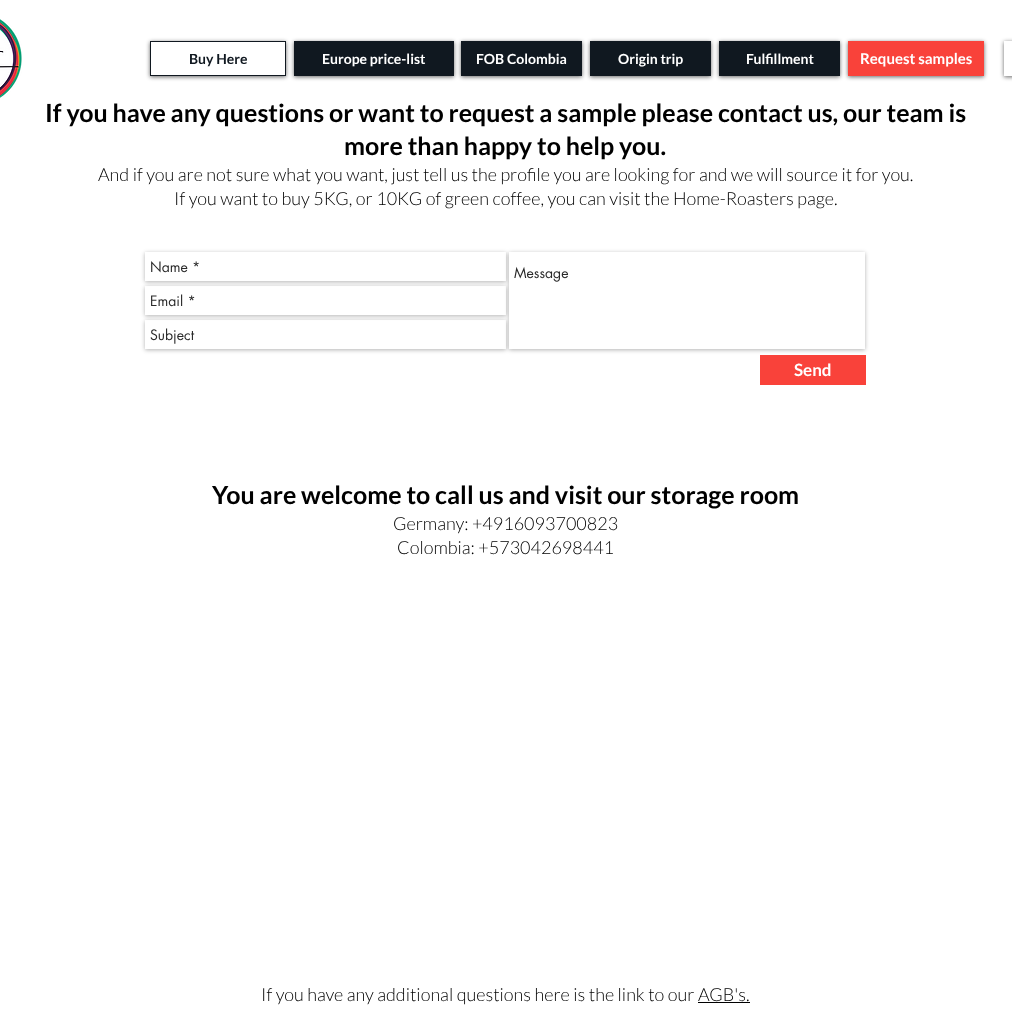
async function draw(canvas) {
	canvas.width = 1012;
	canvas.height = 1032;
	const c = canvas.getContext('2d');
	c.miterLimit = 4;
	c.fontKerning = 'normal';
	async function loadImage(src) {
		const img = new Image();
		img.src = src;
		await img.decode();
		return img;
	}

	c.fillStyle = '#fff';
	c.fillRect(0, 0, 1012, 1032);
	c.drawImage(await loadImage('img1.png'), 0, 19, 22, 79);
	c.save();
	c.beginPath();
	c.moveTo(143, 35);
	c.lineTo(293, 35);
	c.lineTo(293, 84);
	c.lineTo(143, 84);
	c.closePath();
	c.moveTo(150, 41);
	c.lineTo(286, 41);
	c.lineTo(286, 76);
	c.lineTo(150, 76);
	c.closePath();
	c.clip('evenodd');
	c.fillStyle = '#00000099';
	c.filter = 'blur(2px)';
	c.beginPath();
	c.rect(150, 42, 136, 35);
	c.fill();
	c.filter = 'none';
	c.restore();
	c.strokeStyle = '#101820';
	c.strokeRect(150.5, 41.5, 135, 34);
	c.font = 'bold 14px Lato';
	c.fillStyle = '#101820';
	c.fillText('Buy Here', 189, 64);
	c.fillStyle = '#00000099';
	c.filter = 'blur(2px)';
	c.beginPath();
	c.rect(294, 42, 160, 35);
	c.fill();
	c.filter = 'none';
	c.fillStyle = '#101820';
	c.fillRect(294, 41, 160, 35);
	c.fillStyle = '#fff';
	c.fillText('Europe price-list', 322, 64);
	c.fillStyle = '#00000099';
	c.filter = 'blur(2px)';
	c.beginPath();
	c.rect(461, 42, 121, 35);
	c.fill();
	c.filter = 'none';
	c.fillStyle = '#101820';
	c.fillRect(461, 41, 121, 35);
	c.fillStyle = '#fff';
	c.fillText('FOB Colombia', 476, 64);
	c.fillStyle = '#00000099';
	c.filter = 'blur(2px)';
	c.beginPath();
	c.rect(590, 42, 121, 35);
	c.fill();
	c.filter = 'none';
	c.fillStyle = '#101820';
	c.fillRect(590, 41, 121, 35);
	c.fillStyle = '#fff';
	c.fillText('Origin trip', 618, 64);
	c.fillStyle = '#00000099';
	c.filter = 'blur(2px)';
	c.beginPath();
	c.rect(719, 42, 121, 35);
	c.fill();
	c.filter = 'none';
	c.fillStyle = '#101820';
	c.fillRect(719, 41, 121, 35);
	c.fillStyle = '#fff';
	c.fillText('Fulfillment', 746, 64);
	c.fillStyle = '#00000099';
	c.filter = 'blur(2px)';
	c.beginPath();
	c.rect(848, 42, 136, 35);
	c.fill();
	c.filter = 'none';
	c.fillStyle = '#f9423a';
	c.fillRect(848, 41, 136, 35);
	c.font = 'bold 15px Lato';
	c.fillStyle = '#fff';
	c.fillText('Request samples', 860, 64);
	c.save();
	c.beginPath();
	c.moveTo(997, 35);
	c.lineTo(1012, 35);
	c.lineTo(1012, 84);
	c.lineTo(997, 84);
	c.closePath();
	c.moveTo(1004, 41);
	c.lineTo(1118, 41);
	c.lineTo(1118, 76);
	c.lineTo(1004, 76);
	c.closePath();
	c.clip('evenodd');
	c.fillStyle = '#00000099';
	c.filter = 'blur(2px)';
	c.beginPath();
	c.rect(1004, 42, 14, 35);
	c.fill();
	c.filter = 'none';
	c.restore();
	c.font = 'bold 25px Lato';
	c.fillStyle = '#000';
	c.fillText('If you have any questions or want to request a sample please contact us, our team is', 45, 122);
	c.fillText('more than happy to help you.', 344, 155);
	c.font = '300 18px Lato';
	c.fillText('And if you are not sure what you want, just tell us the profile you are looking for and we will source it for you.', 98, 181);
	c.fillText('If you want to buy 5KG, or 10KG of green coffee, you can visit the Home-Roasters page.', 174, 205);
	c.save();
	c.beginPath();
	c.moveTo(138, 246);
	c.lineTo(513, 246);
	c.lineTo(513, 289);
	c.lineTo(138, 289);
	c.closePath();
	c.moveTo(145, 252);
	c.lineTo(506, 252);
	c.lineTo(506, 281);
	c.lineTo(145, 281);
	c.closePath();
	c.clip('evenodd');
	c.fillStyle = '#0000004d';
	c.filter = 'blur(2px)';
	c.beginPath();
	c.rect(145, 253, 361, 29);
	c.fill();
	c.filter = 'none';
	c.restore();
	c.font = '14px futura';
	c.fillStyle = '#2a2a2a';
	c.fillText('Name *', 150, 272);
	c.fillStyle = '#0000004d';
	c.filter = 'blur(2px)';
	c.beginPath();
	c.rect(509, 253, 356, 97);
	c.fill();
	c.filter = 'none';
	c.save();
	c.beginPath();
	c.moveTo(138, 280);
	c.lineTo(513, 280);
	c.lineTo(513, 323);
	c.lineTo(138, 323);
	c.closePath();
	c.moveTo(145, 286);
	c.lineTo(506, 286);
	c.lineTo(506, 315);
	c.lineTo(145, 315);
	c.closePath();
	c.clip('evenodd');
	c.filter = 'blur(2px)';
	c.beginPath();
	c.rect(145, 287, 361, 29);
	c.fill();
	c.filter = 'none';
	c.restore();
	c.save();
	c.beginPath();
	c.moveTo(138, 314);
	c.lineTo(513, 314);
	c.lineTo(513, 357);
	c.lineTo(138, 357);
	c.closePath();
	c.moveTo(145, 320);
	c.lineTo(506, 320);
	c.lineTo(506, 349);
	c.lineTo(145, 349);
	c.closePath();
	c.clip('evenodd');
	c.filter = 'blur(2px)';
	c.beginPath();
	c.rect(145, 321, 361, 29);
	c.fill();
	c.filter = 'none';
	c.restore();
	c.fillStyle = '#fff';
	c.fillRect(509, 252, 356, 97);
	c.fillStyle = '#2a2a2a';
	for (const [text, x, y] of [
		['Message', 514, 278],
		['Email *', 150, 306],
		['Subject', 150, 340],
	]) {
		c.fillText(text, x, y);
	}
	c.fillStyle = '#f9423a';
	c.fillRect(760, 355, 106, 30);
	c.font = 'bold 17px Lato';
	c.fillStyle = '#fff';
	c.fillText('Send', 794, 376);
	c.font = 'bold 25px Lato';
	c.fillStyle = '#000';
	c.fillText('You are welcome to call us and visit our storage room', 212, 504);
	c.font = '300 18px Lato';
	for (const [text, x, y] of [
		['Germany: +4916093700823', 393, 530],
		['Colombia: +573042698441', 397, 554],
		['If you have any additional questions here is the link to our AGB\'s.', 261, 1001],
	]) {
		c.fillText(text, x, y);
	}
	c.fillRect(698, 1002, 52, 1);
}

draw(document.querySelector('canvas'));
